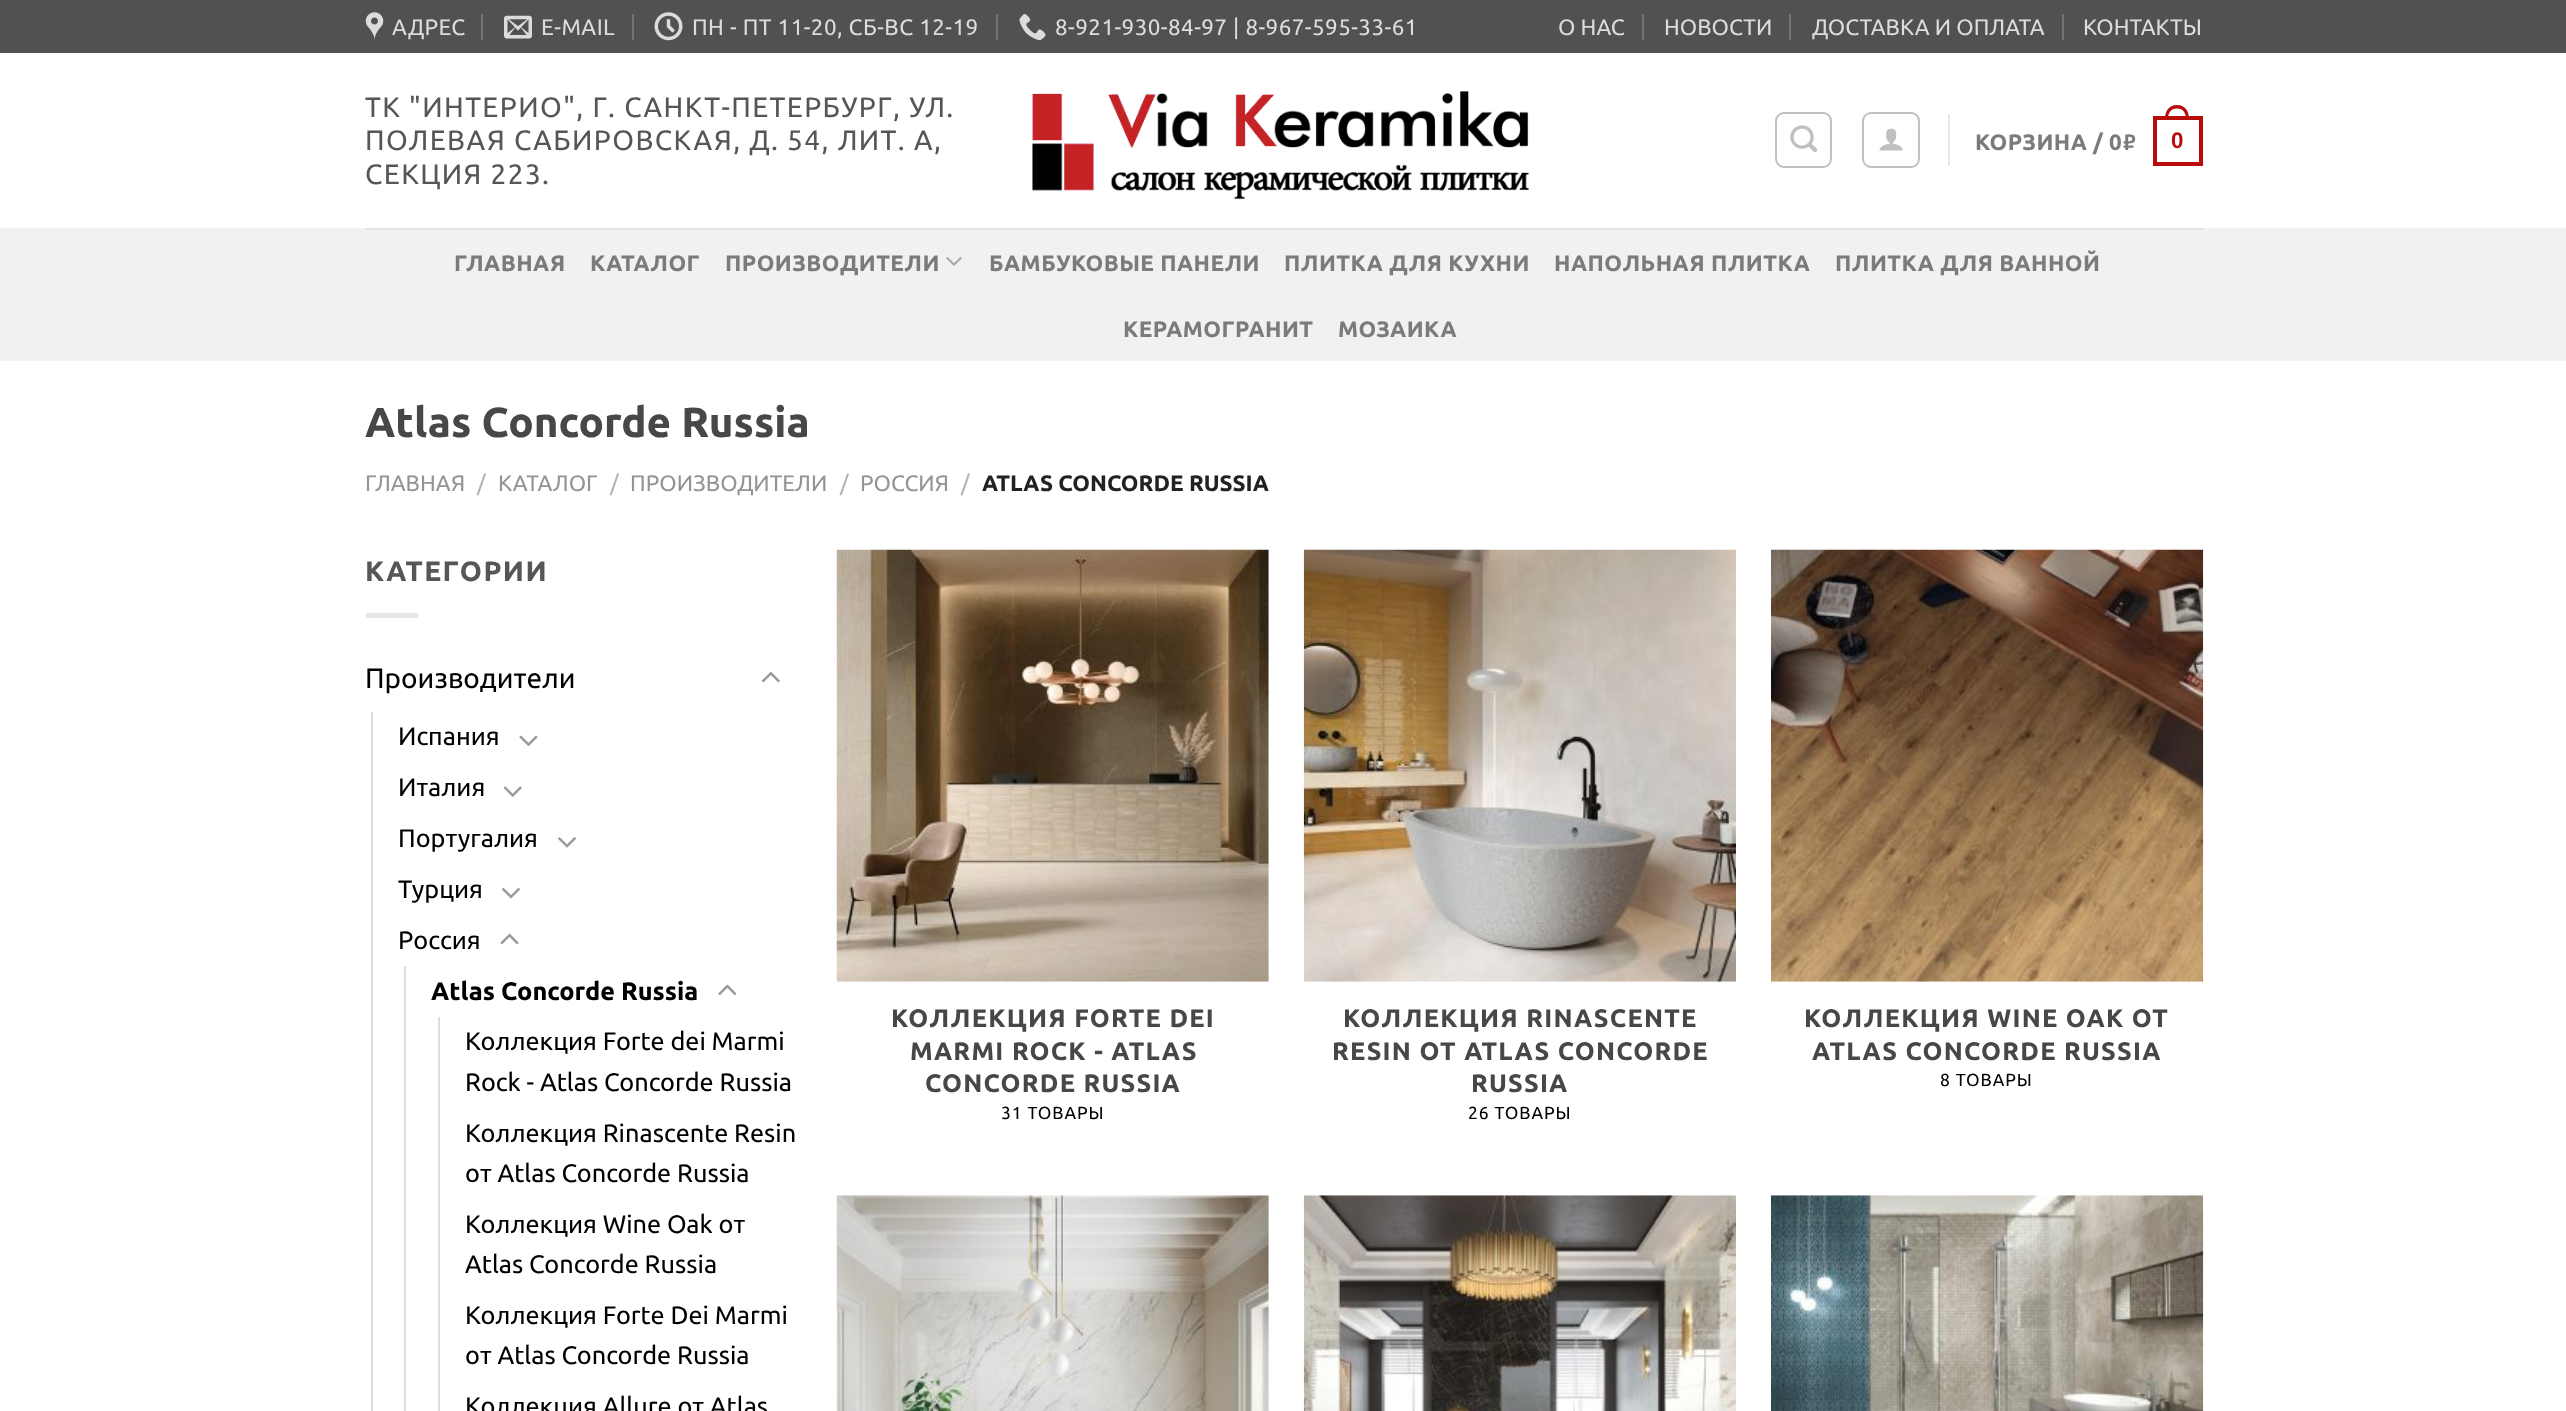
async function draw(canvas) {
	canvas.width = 2566;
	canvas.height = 1411;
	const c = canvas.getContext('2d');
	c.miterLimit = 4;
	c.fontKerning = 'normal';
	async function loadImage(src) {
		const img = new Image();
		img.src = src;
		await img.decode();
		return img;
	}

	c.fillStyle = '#fff';
	c.fillRect(0, 0, 2566, 1411);
	c.fillStyle = '#515151';
	c.fillRect(0, 0, 2566, 53);
	c.drawImage(await loadImage('img1.png'), 365, 12, 19, 28);
	c.letterSpacing = '0.45px';
	c.font = '22.4px Ubuntu';
	c.fillStyle = '#dcdcdc';
	c.fillText('АДРЕС', 392, 35);
	c.fillStyle = '#747474';
	c.fillRect(481, 14, 2, 26);
	c.drawImage(await loadImage('img2.png'), 504, 15, 28, 24);
	c.fillStyle = '#dcdcdc';
	c.fillText('E-MAIL', 541, 35);
	c.fillStyle = '#747474';
	c.fillRect(632, 14, 2, 26);
	c.drawImage(await loadImage('img3.png'), 654, 12, 29, 29);
	c.fillStyle = '#dcdcdc';
	c.fillText('ПН - ПТ 11-20, СБ-ВС 12-19', 692, 35);
	c.fillStyle = '#747474';
	c.fillRect(996, 14, 2, 26);
	c.drawImage(await loadImage('img4.png'), 1019, 14, 27, 27);
	c.fillStyle = '#dcdcdc';
	c.fillText('8-921-930-84-97 | 8-967-595-33-61', 1055, 35);
	c.letterSpacing = '0px';
	c.fillText('О НАС', 1558, 35);
	c.fillStyle = '#747474';
	c.fillRect(1642, 14, 2, 26);
	c.fillStyle = '#dcdcdc';
	c.fillText('НОВОСТИ', 1664, 35);
	c.fillStyle = '#747474';
	c.fillRect(1789, 14, 2, 26);
	c.fillStyle = '#dcdcdc';
	c.fillText('ДОСТАВКА И ОПЛАТА', 1812, 35);
	c.fillStyle = '#747474';
	c.fillRect(2062, 14, 2, 26);
	c.fillStyle = '#dcdcdc';
	c.fillText('КОНТАКТЫ', 2083, 35);
	c.letterSpacing = '1.4px';
	c.font = '28px Ubuntu';
	c.fillStyle = '#565656';
	for (const [text, x, y] of [
		['ТК "ИНТЕРИО", Г. САНКТ-ПЕТЕРБУРГ, УЛ.', 365, 117],
		['ПОЛЕВАЯ САБИРОВСКАЯ, Д. 54, ЛИТ. А,', 365, 150],
		['СЕКЦИЯ 223.', 365, 184],
	]) {
		c.fillText(text, x, y);
	}
	c.drawImage(await loadImage('img5.png'), 1032, 91, 497, 109);
	c.beginPath();
	c.roundRect(1776, 113, 55, 54, 8);
	c.strokeStyle = '#c0c0c0';
	c.lineWidth = 2;
	c.stroke();
	c.drawImage(await loadImage('img6.png'), 1790, 125, 27, 28);
	c.beginPath();
	c.roundRect(1863, 113, 56, 54, 8);
	c.stroke();
	c.drawImage(await loadImage('img7.png'), 1879, 128, 24, 23);
	c.fillStyle = '#e6e6e6';
	c.fillRect(1948, 114, 2, 52);
	c.letterSpacing = '0.45px';
	c.font = 'bold 22.4px Ubuntu';
	c.fillStyle = '#7b7b7b';
	c.fillText('КОРЗИНА / 0', 1975, 150);
	c.font = 'bold 22.4px "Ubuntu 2"';
	c.fillText('₽', 2123, 150);
	c.strokeStyle = '#ba0b0b';
	c.lineWidth = 4;
	c.strokeRect(2155, 118, 46, 46);
	c.fillStyle = '#ba0b0b';
	c.beginPath();
	c.moveTo(2177, 105);
	c.bezierCurveTo(2185.5, 105, 2189, 111.5, 2189, 119);
	c.lineTo(2165, 119);
	c.bezierCurveTo(2165, 111.5, 2168.5, 105, 2177, 105);
	c.closePath();
	c.moveTo(2177, 108.5);
	c.bezierCurveTo(2183.5, 108.5, 2186, 113.5, 2186, 119);
	c.lineTo(2168, 119);
	c.bezierCurveTo(2168, 113.5, 2170.5, 108.5, 2177, 108.5);
	c.closePath();
	c.fill('evenodd');
	c.font = 'bold 22.4px Liberation Sans';
	c.fillText('0', 2171, 148);
	c.fillStyle = '#f1f1f1';
	c.fillRect(0, 228, 2566, 133);
	c.fillStyle = '#e2e2e2';
	c.fillRect(366, 228, 1837, 2);
	c.font = 'bold 22.4px Ubuntu';
	c.fillStyle = '#7b7b7b';
	for (const [text, x, y] of [
		['ГЛАВНАЯ', 454, 271],
		['КАТАЛОГ', 590, 271],
		['ПРОИЗВОДИТЕЛИ', 725, 271],
	]) {
		c.fillText(text, x, y);
	}
	c.drawImage(await loadImage('img8.png'), 946, 257, 16, 9);
	for (const [text, x, y] of [
		['БАМБУКОВЫЕ ПАНЕЛИ', 989, 271],
		['ПЛИТКА ДЛЯ КУХНИ', 1284, 271],
		['НАПОЛЬНАЯ ПЛИТКА', 1554, 271],
		['ПЛИТКА ДЛЯ ВАННОЙ', 1835, 271],
		['КЕРАМОГРАНИТ', 1123, 337],
		['МОЗАИКА', 1338, 337],
	]) {
		c.fillText(text, x, y);
	}
	c.letterSpacing = '0px';
	c.font = 'bold 42px Ubuntu';
	c.fillStyle = '#484646';
	c.fillText('Atlas Concorde Russia', 365, 437);
	c.font = '22.4px Ubuntu';
	c.fillStyle = '#949494';
	c.fillText('ГЛАВНАЯ', 365, 491);
	c.fillStyle = '#b2b2b2';
	c.fillText('/', 477, 491);
	c.fillStyle = '#949494';
	c.fillText('КАТАЛОГ', 498, 491);
	c.fillStyle = '#b2b2b2';
	c.fillText('/', 610, 491);
	c.fillStyle = '#949494';
	c.fillText('ПРОИЗВОДИТЕЛИ', 630, 491);
	c.fillStyle = '#b2b2b2';
	c.fillText('/', 840, 491);
	c.fillStyle = '#949494';
	c.fillText('РОССИЯ', 860, 491);
	c.fillStyle = '#b2b2b2';
	c.fillText('/', 961, 491);
	c.font = 'bold 22.4px Ubuntu';
	c.fillStyle = '#222';
	c.fillText('ATLAS CONCORDE RUSSIA', 982, 491);
	c.letterSpacing = '1.4px';
	c.font = 'bold 28px Ubuntu';
	c.fillStyle = '#565656';
	c.fillText('КАТЕГОРИИ', 365, 581);
	c.fillStyle = '#e6e6e6';
	c.fillRect(366, 613, 52, 5);
	c.letterSpacing = '0px';
	c.font = '28px Ubuntu';
	c.fillStyle = '#000';
	c.fillText('Производители', 365, 688);
	c.drawImage(await loadImage('img9.png'), 761, 671, 19, 12);
	c.fillStyle = '#ddd';
	c.fillRect(371, 712, 2, 699);
	c.font = '25.25px Ubuntu';
	c.fillStyle = '#000';
	c.fillText('Испания', 398, 745);
	c.drawImage(await loadImage('img10.png'), 519, 735, 19, 12);
	c.fillText('Италия', 398, 796);
	c.drawImage(await loadImage('img11.png'), 503, 786, 19, 11);
	c.fillText('Португалия', 398, 847);
	c.drawImage(await loadImage('img12.png'), 558, 837, 18, 11);
	c.fillText('Турция', 398, 898);
	c.drawImage(await loadImage('img13.png'), 502, 887, 18, 12);
	c.fillText('Россия', 398, 949);
	c.drawImage(await loadImage('img14.png'), 500, 933, 19, 12);
	c.fillStyle = '#ddd';
	c.fillRect(404, 966, 2, 445);
	c.font = 'bold 25.25px Ubuntu';
	c.fillStyle = '#000';
	c.fillText('Atlas Concorde Russia', 431, 1000);
	c.drawImage(await loadImage('img15.png'), 718, 984, 19, 12);
	c.fillStyle = '#ddd';
	c.fillRect(438, 1017, 2, 394);
	c.font = '25.25px Ubuntu';
	c.fillStyle = '#000';
	for (const [text, x, y] of [
		['Коллекция Forte dei Marmi', 465, 1050],
		['Rock - Atlas Concorde Russia', 465, 1091],
		['Коллекция Rinascente Resin', 465, 1142],
		['от Atlas Concorde Russia', 465, 1182],
		['Коллекция Wine Oak от', 465, 1233],
		['Atlas Concorde Russia', 465, 1273],
		['Коллекция Forte Dei Marmi', 465, 1324],
		['от Atlas Concorde Russia', 465, 1364],
		['Коллекция Allure от Atlas', 465, 1415],
	]) {
		c.fillText(text, x, y);
	}
	c.drawImage(await loadImage('img16.png'), 836, 549, 433, 433);
	c.letterSpacing = '1.25px';
	c.font = 'bold 25.25px Ubuntu';
	c.fillStyle = '#484646';
	for (const [text, x, y] of [
		['КОЛЛЕКЦИЯ FORTE DEI', 891, 1027],
		['MARMI ROCK - ATLAS', 910, 1060],
		['CONCORDE RUSSIA', 925, 1092],
	]) {
		c.fillText(text, x, y);
	}
	c.letterSpacing = '0.9px';
	c.font = '17.5px Ubuntu';
	c.fillStyle = '#000';
	c.fillText('31 ТОВАРЫ', 1001, 1119);
	c.drawImage(await loadImage('img17.png'), 1303, 549, 433, 433);
	c.letterSpacing = '1.25px';
	c.font = 'bold 25.25px Ubuntu';
	c.fillStyle = '#484646';
	for (const [text, x, y] of [
		['КОЛЛЕКЦИЯ RINASCENTE', 1343, 1027],
		['RESIN ОТ ATLAS CONCORDE', 1332, 1060],
		['RUSSIA', 1471, 1092],
	]) {
		c.fillText(text, x, y);
	}
	c.letterSpacing = '0.9px';
	c.font = '17.5px Ubuntu';
	c.fillStyle = '#000';
	c.fillText('26 ТОВАРЫ', 1468, 1119);
	c.drawImage(await loadImage('img18.png'), 1771, 549, 433, 433);
	c.letterSpacing = '1.25px';
	c.font = 'bold 25.25px Ubuntu';
	c.fillStyle = '#484646';
	c.fillText('КОЛЛЕКЦИЯ WINE OAK ОТ', 1804, 1027);
	c.fillText('ATLAS CONCORDE RUSSIA', 1812, 1060);
	c.letterSpacing = '0.9px';
	c.font = '17.5px Ubuntu';
	c.fillStyle = '#000';
	c.fillText('8 ТОВАРЫ', 1940, 1086);
	c.drawImage(await loadImage('img19.png'), 836, 1195, 433, 216);
	c.drawImage(await loadImage('img20.png'), 1303, 1195, 433, 216);
	c.drawImage(await loadImage('img21.png'), 1771, 1195, 433, 216);
}

draw(document.querySelector('canvas'));
